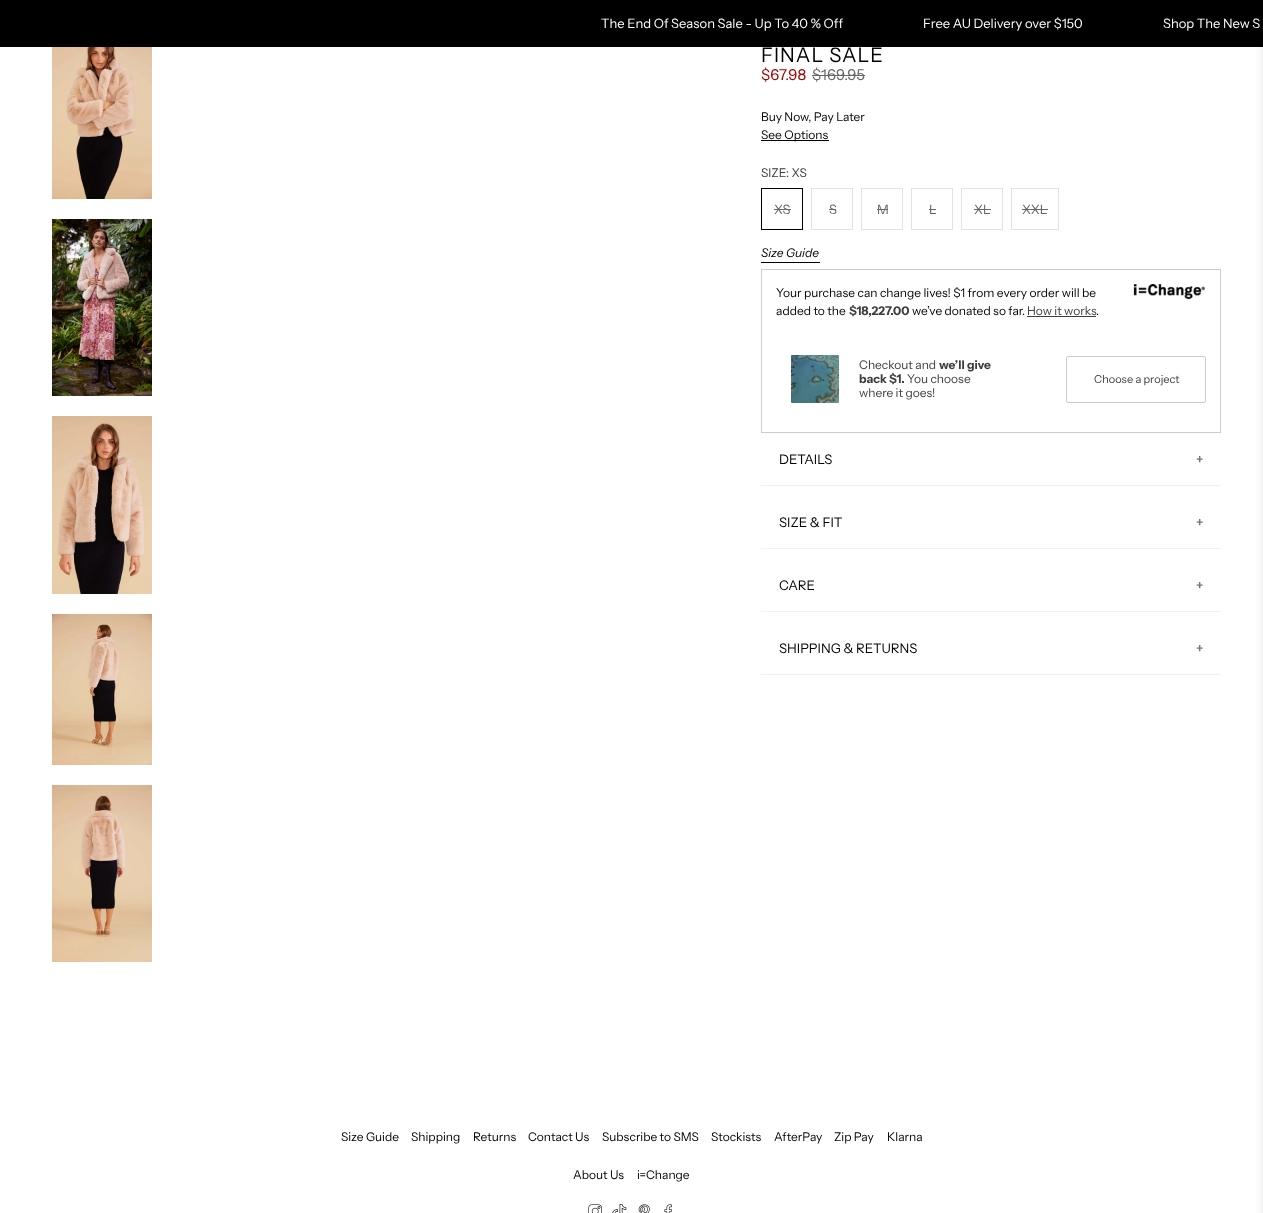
async function draw(canvas) {
	canvas.width = 1263;
	canvas.height = 1213;
	const c = canvas.getContext('2d');
	c.miterLimit = 4;
	c.fontKerning = 'normal';
	async function loadImage(src) {
		const img = new Image();
		img.src = src;
		await img.decode();
		return img;
	}

	c.fillStyle = '#fff';
	c.fillRect(0, 0, 1263, 1213);
	c.fillStyle = '#000';
	c.fillRect(0, 0, 1263, 47);
	c.font = '13px Instrument Sans';
	c.fillStyle = '#fff';
	for (const [text, x, y] of [
		['The End Of Season Sale - Up To 40 % Off', 601, 28],
		['Free AU Delivery over $150', 923, 28],
		['Shop The New S', 1163, 28],
	]) {
		c.fillText(text, x, y);
	}
	c.drawImage(await loadImage('img1.png'), 52, 47, 100, 152);
	c.drawImage(await loadImage('img2.png'), 52, 219, 100, 177);
	c.drawImage(await loadImage('img3.png'), 52, 416, 100, 178);
	c.drawImage(await loadImage('img4.png'), 52, 614, 100, 151);
	c.drawImage(await loadImage('img5.png'), 52, 785, 100, 177);
	c.letterSpacing = '1px';
	c.font = '20px Instrument Sans';
	c.fillStyle = '#000';
	c.fillText('FINAL SALE', 761, 62);
	c.letterSpacing = '0px';
	c.font = '15px Instrument Sans';
	c.fillStyle = '#a10000';
	c.fillText('$67.98', 761, 80);
	c.fillStyle = '#666';
	c.fillText('$169.95', 812, 80);
	c.fillRect(812, 75, 53, 1);
	c.font = '12px Instrument Sans';
	c.fillStyle = '#000';
	c.fillText('Buy Now, Pay Later', 761, 121);
	c.fillRect(761, 140, 68, 1);
	c.fillText('See Options', 761, 139);
	c.fillStyle = '#363636';
	c.fillText('SIZE: XS', 761, 177);
	c.strokeStyle = '#000';
	c.strokeRect(761.5, 188.5, 41, 41);
	c.font = '13px Instrument Sans';
	c.fillStyle = '#666';
	c.fillText('XS', 774, 214);
	c.fillRect(774, 209, 17, 1);
	c.strokeStyle = '#e2e2e2';
	c.strokeRect(811.5, 188.5, 41, 41);
	c.fillText('S', 829, 214);
	c.fillRect(829, 209, 7, 1);
	c.strokeRect(861.5, 188.5, 41, 41);
	c.fillText('M', 877, 214);
	c.fillRect(877, 209, 11, 1);
	c.strokeRect(911.5, 188.5, 41, 41);
	c.fillText('L', 929, 214);
	c.fillRect(929, 209, 7, 1);
	c.strokeRect(961.5, 188.5, 41, 41);
	c.fillText('XL', 974, 214);
	c.fillRect(974, 209, 17, 1);
	c.strokeRect(1011.5, 188.5, 47, 41);
	c.fillText('XXL', 1022, 214);
	c.fillRect(1022, 209, 26, 1);
	c.fillStyle = '#000';
	c.fillRect(761, 262, 59, 1);
	c.font = 'italic 12px Instrument Sans';
	c.fillText('Size Guide', 761, 257);
	c.fillStyle = '#0a0a0a1a';
	c.filter = 'blur(4px)';
	c.beginPath();
	c.rect(1263, 8, 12, 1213);
	c.fill();
	c.filter = 'none';
	c.strokeStyle = '#ccc';
	c.strokeRect(761.5, 269.5, 459, 163);
	c.font = '12px Instrument Sans';
	c.fillStyle = '#000';
	c.fillText('Your purchase can change lives! $1 from every order will be', 776, 297);
	c.fillText('added to the', 776, 315);
	c.font = 'bold 12px Instrument Sans';
	c.fillStyle = '#3d3d3d';
	c.fillText('$18,227.00', 849, 315);
	c.font = '12px Instrument Sans';
	c.fillStyle = '#000';
	c.fillText('we’ve donated so far.', 912, 315);
	c.fillStyle = '#3d3d3d';
	c.fillText('How it works', 1027, 315);
	c.fillRect(1027, 316, 69, 1);
	c.fillStyle = '#000';
	c.fillText('.', 1096, 315);
	c.drawImage(await loadImage('img6.png'), 1133, 284, 72, 16);
	c.drawImage(await loadImage('img7.png'), 791, 355, 48, 48);
	c.fillStyle = '#3d3d3d';
	c.fillText('Checkout and', 859, 369);
	c.font = 'bold 12px Instrument Sans';
	c.fillText('we’ll give', 939, 369);
	c.fillText('back $1.', 859, 383);
	c.font = '12px Instrument Sans';
	c.fillText('You choose', 907, 383);
	c.fillText('where it goes!', 859, 397);
	c.beginPath();
	c.roundRect(1066.5, 356.5, 139, 46, 1.5);
	c.stroke();
	c.font = '11px Instrument Sans';
	c.fillText('Choose a project', 1094, 383);
	c.fillStyle = '#f1f1f1';
	c.fillRect(761, 485, 460, 1);
	c.font = '13.25px Instrument Sans';
	c.fillStyle = '#000';
	c.fillText('DETAILS', 779, 464);
	c.font = 'bold 13.25px Instrument Sans';
	c.fillStyle = '#777';
	c.fillText('+', 1196, 464);
	c.fillStyle = '#f1f1f1';
	c.fillRect(761, 548, 460, 1);
	c.font = '13.25px Instrument Sans';
	c.fillStyle = '#000';
	c.fillText('SIZE & FIT', 779, 527);
	c.font = 'bold 13.25px Instrument Sans';
	c.fillStyle = '#777';
	c.fillText('+', 1196, 527);
	c.fillStyle = '#f1f1f1';
	c.fillRect(761, 611, 460, 1);
	c.font = '13.25px Instrument Sans';
	c.fillStyle = '#000';
	c.fillText('CARE', 779, 590);
	c.font = 'bold 13.25px Instrument Sans';
	c.fillStyle = '#777';
	c.fillText('+', 1196, 590);
	c.fillStyle = '#f1f1f1';
	c.fillRect(761, 674, 460, 1);
	c.font = '13.25px Instrument Sans';
	c.fillStyle = '#000';
	c.fillText('SHIPPING & RETURNS', 779, 653);
	c.font = 'bold 13.25px Instrument Sans';
	c.fillStyle = '#777';
	c.fillText('+', 1196, 653);
	c.font = '12px Instrument Sans';
	c.fillStyle = '#000';
	for (const [text, x, y] of [
		['Size Guide', 341, 1141],
		['Shipping', 411, 1141],
		['Returns', 473, 1141],
		['Contact Us', 528, 1141],
		['Subscribe to SMS', 602, 1141],
		['Stockists', 711, 1141],
		['AfterPay', 774, 1141],
		['Zip Pay', 834, 1141],
		['Klarna', 887, 1141],
		['About Us', 573, 1179],
		['i=Change', 637, 1179],
	]) {
		c.fillText(text, x, y);
	}
	c.drawImage(await loadImage('img8.png'), 588, 1204, 14, 9);
	c.drawImage(await loadImage('img9.png'), 612, 1204, 15, 9);
	c.drawImage(await loadImage('img10.png'), 638, 1204, 12, 9);
	c.drawImage(await loadImage('img11.png'), 664, 1204, 8, 9);
}

draw(document.querySelector('canvas'));
